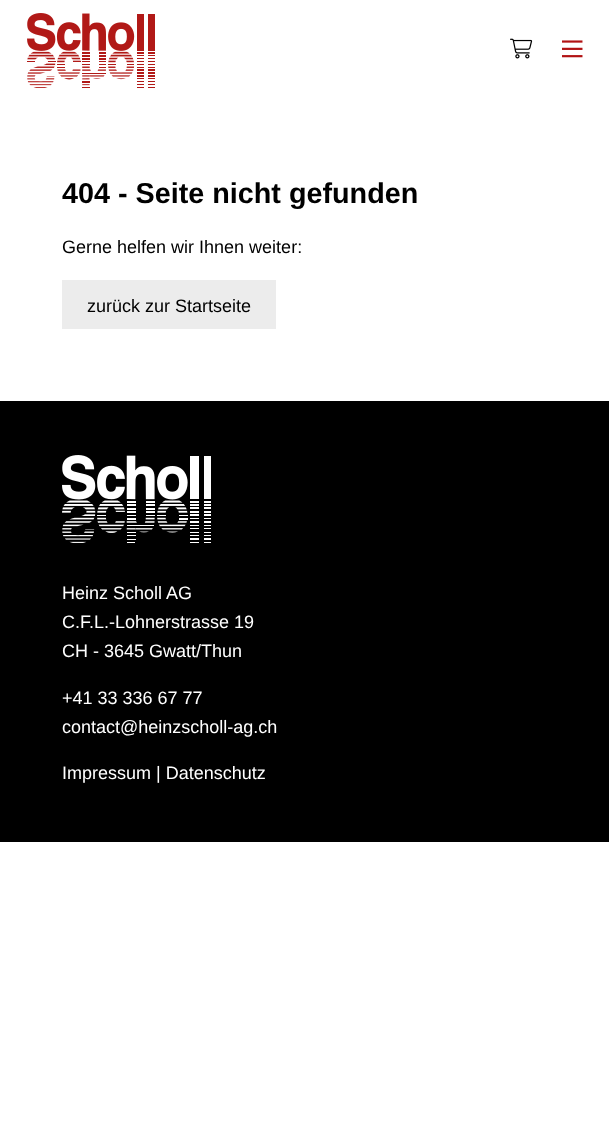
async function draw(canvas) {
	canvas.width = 609;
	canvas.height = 1133;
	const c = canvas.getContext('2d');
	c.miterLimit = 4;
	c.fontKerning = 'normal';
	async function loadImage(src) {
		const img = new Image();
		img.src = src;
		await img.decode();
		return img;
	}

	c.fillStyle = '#fff';
	c.fillRect(0, 0, 609, 1133);
	c.drawImage(await loadImage('img1.png'), 27, 13, 128, 75);
	c.drawImage(await loadImage('img2.png'), 510, 38, 23, 21);
	c.drawImage(await loadImage('img3.png'), 562, 40, 21, 18);
	c.font = 'bold 28.75px Liberation Sans';
	c.fillStyle = '#000';
	c.fillText('404 - Seite nicht gefunden', 62, 203);
	c.font = '18px Liberation Sans';
	c.fillText('Gerne helfen wir Ihnen weiter:', 62, 253);
	c.fillStyle = '#ececec';
	c.fillRect(62, 280, 214, 49);
	c.fillStyle = '#000';
	c.fillText('zurück zur Startseite', 87, 312);
	c.fillRect(0, 401, 609, 441);
	c.drawImage(await loadImage('img4.png'), 62, 455, 149, 88);
	c.fillStyle = '#fff';
	for (const [text, x, y] of [
		['Heinz Scholl AG', 62, 599],
		['C.F.L.-Lohnerstrasse 19', 62, 628],
		['CH - 3645 Gwatt/Thun', 62, 657],
		['+41 33 336 67 77', 62, 704],
		['contact@heinzscholl-ag.ch', 62, 733],
		['Impressum | Datenschutz', 62, 779],
	]) {
		c.fillText(text, x, y);
	}
}

draw(document.querySelector('canvas'));
